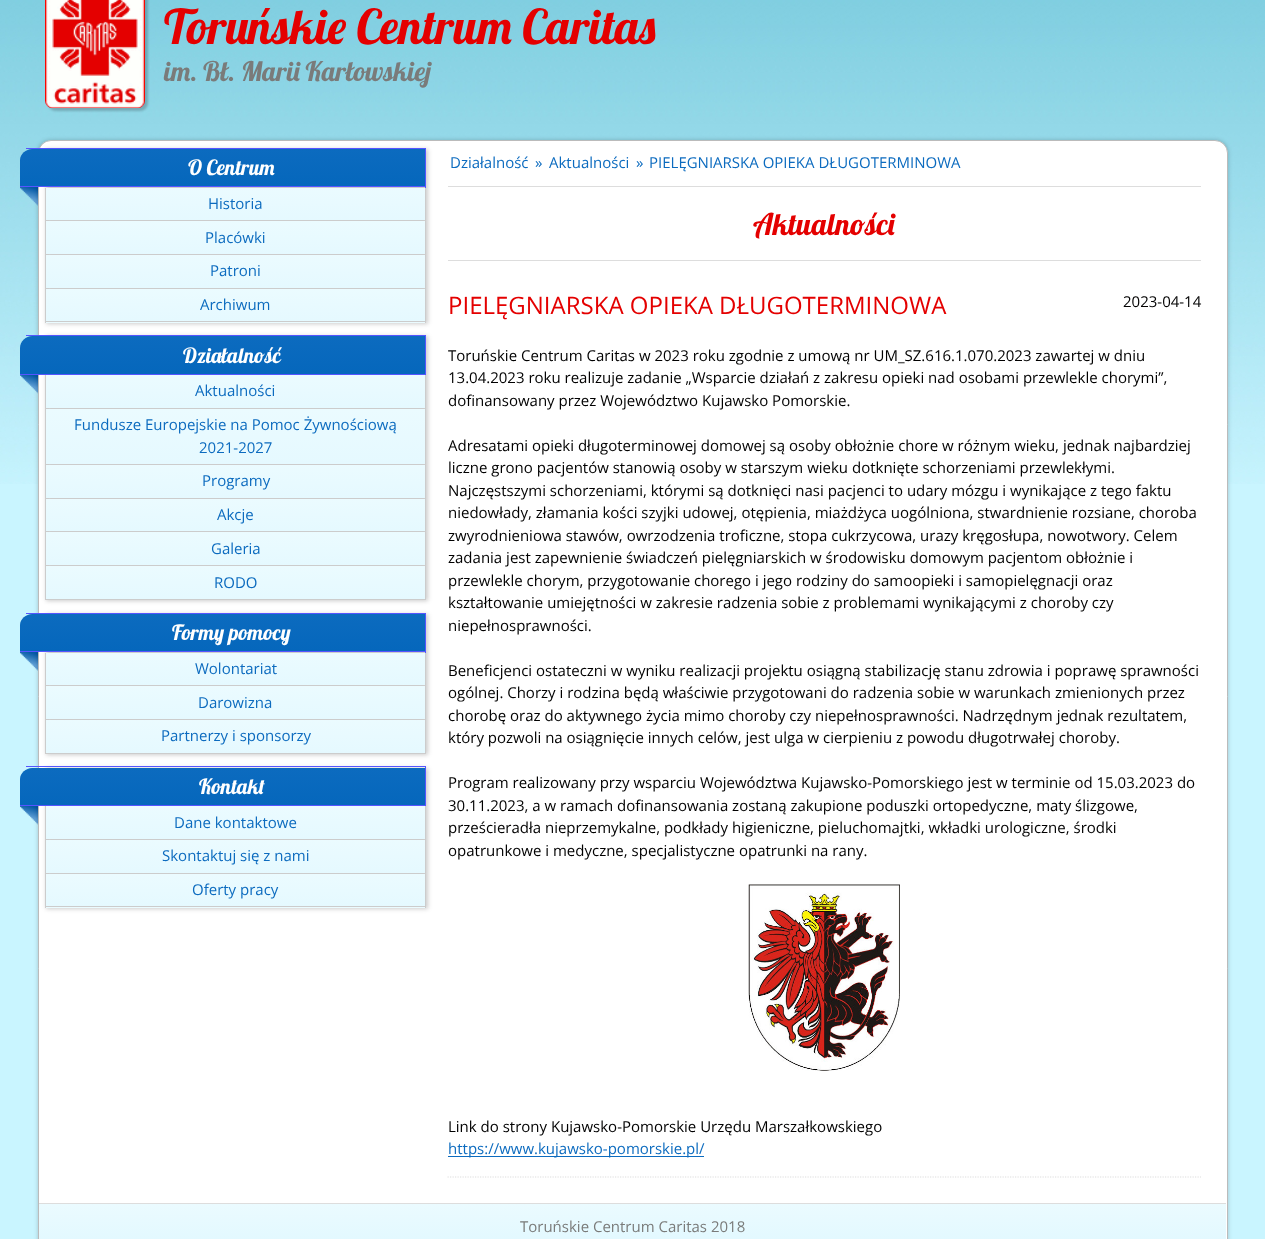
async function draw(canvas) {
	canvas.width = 1265;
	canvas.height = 1239;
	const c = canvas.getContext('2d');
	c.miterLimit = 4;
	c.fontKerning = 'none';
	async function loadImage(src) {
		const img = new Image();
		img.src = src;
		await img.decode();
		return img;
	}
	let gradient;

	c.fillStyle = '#c9f5ff';
	c.fillRect(0, 0, 1265, 1239);
	c.drawImage(await loadImage('img1.png'), 0, 0, 1265, 484);
	c.fillStyle = '#00000033';
	c.filter = 'blur(1px)';
	c.beginPath();
	c.roundRect(48, -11, 100, 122, 8);
	c.fill();
	c.filter = 'none';
	c.drawImage(await loadImage('img2.png'), 45, 0, 100, 109);
	c.font = '48px Lobster';
	c.fillStyle = '#e40000';
	c.fillText('Toruńskie Centrum Caritas', 164, 44);
	c.font = '27px Lobster';
	c.fillStyle = '#7a7b7a';
	c.fillText('im. Bł. Marii Karłowskiej', 164, 81);
	c.drawImage(await loadImage('img3.png'), 20, 187, 18, 19);
	c.drawImage(await loadImage('img4.png'), 20, 375, 18, 19);
	c.drawImage(await loadImage('img5.png'), 20, 652, 18, 19);
	c.drawImage(await loadImage('img6.png'), 20, 806, 18, 19);
	c.fillStyle = '#00000033';
	c.filter = 'blur(2px)';
	c.beginPath();
	c.roundRect(38, 140, 1190, 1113, 13);
	c.fill();
	c.filter = 'none';
	c.fillStyle = '#fff';
	c.beginPath();
	c.roundRect(38.5, 140.5, 1189, 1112, 12.5);
	c.fill();
	c.strokeStyle = '#bbb';
	c.stroke();
	c.fillStyle = '#00000033';
	c.filter = 'blur(2px)';
	c.beginPath();
	c.rect(46, 149, 382, 175);
	c.fill();
	c.filter = 'none';
	gradient = c.createLinearGradient(223, 149, 223, 186);
	gradient.addColorStop(0, '#0c6bbf');
	gradient.addColorStop(1, '#0567bc');
	c.fillStyle = gradient;
	c.beginPath();
	c.moveTo(32, 149);
	c.lineTo(425, 149);
	c.lineTo(425, 186);
	c.lineTo(20, 186);
	c.lineTo(20, 160);
	c.bezierCurveTo(20, 154, 26, 149, 32, 149);
	c.closePath();
	c.fill();
	for (const [x, y, w, h, color] of [
		[26, 148, 400, 1, '#55f'],
		[425, 148, 1, 40, '#55f'],
		[20, 186, 406, 1, '#55f'],
	]) {
		c.fillStyle = color;
		c.fillRect(x, y, w, h);
	}
	c.font = '21px Lobster';
	c.fillStyle = '#fff';
	c.fillText('O Centrum', 188, 175);
	gradient = c.createLinearGradient(236, 187, 236, 220);
	gradient.addColorStop(0, '#ebfbff');
	gradient.addColorStop(1, '#e5f9ff');
	c.fillStyle = gradient;
	c.fillRect(46, 188, 379, 32);
	for (const [x, y, w, h, color] of [
		[425, 188, 1, 101, '#ccc'],
		[45, 220, 4, 1, '#ccc'],
		[45, 188, 1, 33, '#ccc'],
	]) {
		c.fillStyle = color;
		c.fillRect(x, y, w, h);
	}
	c.font = '15px Open Sans';
	c.fillStyle = '#0c6bbf';
	c.fillText('Historia', 208, 209);
	gradient = c.createLinearGradient(236, 221, 236, 254);
	gradient.addColorStop(0, '#ebfbff');
	gradient.addColorStop(1, '#e5f9ff');
	c.fillStyle = gradient;
	c.fillRect(46, 221, 379, 33);
	c.fillStyle = '#ccc';
	c.fillRect(45, 254, 4, 1);
	c.fillRect(45, 221, 1, 34);
	c.fillStyle = '#0c6bbf';
	c.fillText('Placówki', 205, 243);
	gradient = c.createLinearGradient(236, 255, 236, 288);
	gradient.addColorStop(0, '#ebfbff');
	gradient.addColorStop(1, '#e5f9ff');
	c.fillStyle = gradient;
	c.fillRect(46, 255, 379, 33);
	c.fillStyle = '#ccc';
	c.fillRect(45, 288, 4, 1);
	c.fillRect(45, 255, 1, 34);
	c.fillStyle = '#0c6bbf';
	c.fillText('Patroni', 210, 276);
	gradient = c.createLinearGradient(236, 289, 236, 321);
	gradient.addColorStop(0, '#ebfbff');
	gradient.addColorStop(1, '#e5f9ff');
	c.fillStyle = gradient;
	c.fillRect(46, 289, 379, 32);
	gradient = c.createLinearGradient(236, 321, 236, 354);
	gradient.addColorStop(0, '#ebfbff');
	gradient.addColorStop(1, '#e5f9ff');
	c.fillStyle = gradient;
	c.fillRect(45, 322, 381, 1);
	for (const [x, y, w, h, color] of [
		[425, 289, 1, 34, '#ccc'],
		[45, 321, 381, 1, '#ccc'],
		[45, 289, 1, 34, '#ccc'],
	]) {
		c.fillStyle = color;
		c.fillRect(x, y, w, h);
	}
	c.fillStyle = '#0c6bbf';
	c.fillText('Archiwum', 200, 310);
	c.fillStyle = '#00000033';
	c.filter = 'blur(2px)';
	c.beginPath();
	c.rect(46, 336, 382, 265);
	c.fill();
	c.filter = 'none';
	gradient = c.createLinearGradient(223, 336, 223, 374);
	gradient.addColorStop(0, '#0c6bbf');
	gradient.addColorStop(1, '#0567bc');
	c.fillStyle = gradient;
	c.beginPath();
	c.moveTo(32, 336);
	c.lineTo(425, 336);
	c.lineTo(425, 374);
	c.lineTo(20, 374);
	c.lineTo(20, 348);
	c.bezierCurveTo(20, 341, 26, 336, 32, 336);
	c.closePath();
	c.fill();
	for (const [x, y, w, h, color] of [
		[26, 335, 400, 1, '#55f'],
		[425, 335, 1, 40, '#55f'],
		[20, 374, 406, 1, '#55f'],
	]) {
		c.fillStyle = color;
		c.fillRect(x, y, w, h);
	}
	c.font = '21px Lobster';
	c.fillStyle = '#fff';
	c.fillText('Działalność', 183, 363);
	gradient = c.createLinearGradient(236, 375, 236, 408);
	gradient.addColorStop(0, '#ebfbff');
	gradient.addColorStop(1, '#e5f9ff');
	c.fillStyle = gradient;
	c.fillRect(46, 375, 379, 33);
	for (const [x, y, w, h, color] of [
		[425, 375, 1, 124, '#ccc'],
		[45, 408, 4, 1, '#ccc'],
		[45, 375, 1, 34, '#ccc'],
	]) {
		c.fillStyle = color;
		c.fillRect(x, y, w, h);
	}
	c.font = '15px Open Sans';
	c.fillStyle = '#0c6bbf';
	c.fillText('Aktualności', 195, 396);
	gradient = c.createLinearGradient(236, 409, 236, 464);
	gradient.addColorStop(0, '#ebfbff');
	gradient.addColorStop(1, '#e5f9ff');
	c.fillStyle = gradient;
	c.fillRect(46, 409, 379, 55);
	c.fillStyle = '#ccc';
	c.fillRect(45, 464, 4, 1);
	c.fillRect(45, 409, 1, 56);
	c.fillStyle = '#0c6bbf';
	c.fillText('Fundusze Europejskie na Pomoc Żywnościową', 74, 430);
	c.fillText('2021-2027', 199, 453);
	gradient = c.createLinearGradient(236, 465, 236, 498);
	gradient.addColorStop(0, '#ebfbff');
	gradient.addColorStop(1, '#e5f9ff');
	c.fillStyle = gradient;
	c.fillRect(46, 465, 379, 33);
	c.fillStyle = '#ccc';
	c.fillRect(45, 498, 4, 1);
	c.fillRect(45, 465, 1, 34);
	c.fillStyle = '#0c6bbf';
	c.fillText('Programy', 202, 486);
	gradient = c.createLinearGradient(236, 499, 236, 531);
	gradient.addColorStop(0, '#ebfbff');
	gradient.addColorStop(1, '#e5f9ff');
	c.fillStyle = gradient;
	c.fillRect(46, 499, 379, 32);
	gradient = c.createLinearGradient(236, 531, 236, 564);
	gradient.addColorStop(0, '#ebfbff');
	gradient.addColorStop(1, '#e5f9ff');
	c.fillStyle = gradient;
	c.fillRect(45, 532, 381, 1);
	for (const [x, y, w, h, color] of [
		[425, 499, 1, 101, '#ccc'],
		[45, 531, 4, 1, '#ccc'],
		[45, 499, 1, 34, '#ccc'],
	]) {
		c.fillStyle = color;
		c.fillRect(x, y, w, h);
	}
	c.fillStyle = '#0c6bbf';
	c.fillText('Akcje', 217, 520);
	gradient = c.createLinearGradient(236, 533, 236, 565);
	gradient.addColorStop(0, '#ebfbff');
	gradient.addColorStop(1, '#e5f9ff');
	c.fillStyle = gradient;
	c.fillRect(46, 533, 379, 32);
	c.fillStyle = '#ccc';
	c.fillRect(45, 565, 4, 1);
	c.fillRect(45, 533, 1, 33);
	c.fillStyle = '#0c6bbf';
	c.fillText('Galeria', 211, 554);
	gradient = c.createLinearGradient(236, 566, 236, 599);
	gradient.addColorStop(0, '#ebfbff');
	gradient.addColorStop(1, '#e5f9ff');
	c.fillStyle = gradient;
	c.fillRect(46, 566, 379, 33);
	c.fillStyle = '#ccc';
	c.fillRect(45, 599, 381, 1);
	c.fillRect(45, 566, 1, 34);
	c.fillStyle = '#0c6bbf';
	c.fillText('RODO', 214, 588);
	c.fillStyle = '#00000033';
	c.filter = 'blur(2px)';
	c.beginPath();
	c.rect(46, 614, 382, 141);
	c.fill();
	c.filter = 'none';
	gradient = c.createLinearGradient(223, 614, 223, 651);
	gradient.addColorStop(0, '#0c6bbf');
	gradient.addColorStop(1, '#0567bc');
	c.fillStyle = gradient;
	c.beginPath();
	c.moveTo(32, 614);
	c.lineTo(425, 614);
	c.lineTo(425, 651);
	c.lineTo(20, 651);
	c.lineTo(20, 625);
	c.bezierCurveTo(20, 619, 26, 614, 32, 614);
	c.closePath();
	c.fill();
	for (const [x, y, w, h, color] of [
		[26, 613, 400, 1, '#55f'],
		[425, 613, 1, 40, '#55f'],
		[20, 651, 406, 1, '#55f'],
	]) {
		c.fillStyle = color;
		c.fillRect(x, y, w, h);
	}
	c.font = '21px Lobster';
	c.fillStyle = '#fff';
	c.fillText('Formy pomocy', 172, 640);
	gradient = c.createLinearGradient(236, 653, 236, 685);
	gradient.addColorStop(0, '#ebfbff');
	gradient.addColorStop(1, '#e5f9ff');
	c.fillStyle = gradient;
	c.fillRect(46, 653, 379, 32);
	for (const [x, y, w, h, color] of [
		[425, 653, 1, 101, '#ccc'],
		[45, 685, 4, 1, '#ccc'],
		[45, 653, 1, 33, '#ccc'],
	]) {
		c.fillStyle = color;
		c.fillRect(x, y, w, h);
	}
	c.font = '15px Open Sans';
	c.fillStyle = '#0c6bbf';
	c.fillText('Wolontariat', 195, 674);
	gradient = c.createLinearGradient(236, 686, 236, 719);
	gradient.addColorStop(0, '#ebfbff');
	gradient.addColorStop(1, '#e5f9ff');
	c.fillStyle = gradient;
	c.fillRect(46, 686, 379, 33);
	c.fillStyle = '#ccc';
	c.fillRect(45, 719, 4, 1);
	c.fillRect(45, 686, 1, 34);
	c.fillStyle = '#0c6bbf';
	c.fillText('Darowizna', 198, 708);
	gradient = c.createLinearGradient(236, 720, 236, 753);
	gradient.addColorStop(0, '#ebfbff');
	gradient.addColorStop(1, '#e5f9ff');
	c.fillStyle = gradient;
	c.fillRect(46, 720, 379, 33);
	c.fillStyle = '#ccc';
	c.fillRect(45, 753, 381, 1);
	c.fillRect(45, 720, 1, 34);
	c.fillStyle = '#0c6bbf';
	c.fillText('Partnerzy i sponsorzy', 161, 741);
	c.fillStyle = '#00000033';
	c.filter = 'blur(2px)';
	c.beginPath();
	c.rect(46, 768, 382, 141);
	c.fill();
	c.filter = 'none';
	gradient = c.createLinearGradient(223, 768, 223, 805);
	gradient.addColorStop(0, '#0c6bbf');
	gradient.addColorStop(1, '#0567bc');
	c.fillStyle = gradient;
	c.beginPath();
	c.moveTo(32, 768);
	c.lineTo(425, 768);
	c.lineTo(425, 805);
	c.lineTo(20, 805);
	c.lineTo(20, 779);
	c.bezierCurveTo(20, 773, 26, 768, 32, 768);
	c.closePath();
	c.fill();
	for (const [x, y, w, h, color] of [
		[26, 766, 400, 1, '#55f'],
		[425, 766, 1, 40, '#55f'],
		[20, 805, 406, 1, '#55f'],
	]) {
		c.fillStyle = color;
		c.fillRect(x, y, w, h);
	}
	c.font = '21px Lobster';
	c.fillStyle = '#fff';
	c.fillText('Kontakt', 199, 794);
	gradient = c.createLinearGradient(236, 806, 236, 839);
	gradient.addColorStop(0, '#ebfbff');
	gradient.addColorStop(1, '#e5f9ff');
	c.fillStyle = gradient;
	c.fillRect(46, 806, 379, 33);
	for (const [x, y, w, h, color] of [
		[425, 806, 1, 68, '#ccc'],
		[45, 839, 4, 1, '#ccc'],
		[45, 806, 1, 34, '#ccc'],
	]) {
		c.fillStyle = color;
		c.fillRect(x, y, w, h);
	}
	c.font = '15px Open Sans';
	c.fillStyle = '#0c6bbf';
	c.fillText('Dane kontaktowe', 174, 828);
	gradient = c.createLinearGradient(236, 840, 236, 873);
	gradient.addColorStop(0, '#ebfbff');
	gradient.addColorStop(1, '#e5f9ff');
	c.fillStyle = gradient;
	c.fillRect(46, 840, 379, 33);
	c.fillStyle = '#ccc';
	c.fillRect(45, 873, 4, 1);
	c.fillRect(45, 840, 1, 34);
	c.fillStyle = '#0c6bbf';
	c.fillText('Skontaktuj się z nami', 162, 861);
	gradient = c.createLinearGradient(236, 874, 236, 906);
	gradient.addColorStop(0, '#ebfbff');
	gradient.addColorStop(1, '#e5f9ff');
	c.fillStyle = gradient;
	c.fillRect(46, 874, 379, 32);
	gradient = c.createLinearGradient(236, 906, 236, 939);
	gradient.addColorStop(0, '#ebfbff');
	gradient.addColorStop(1, '#e5f9ff');
	c.fillStyle = gradient;
	c.fillRect(45, 907, 381, 1);
	for (const [x, y, w, h, color] of [
		[425, 874, 1, 34, '#ccc'],
		[45, 906, 381, 1, '#ccc'],
		[45, 874, 1, 34, '#ccc'],
	]) {
		c.fillStyle = color;
		c.fillRect(x, y, w, h);
	}
	c.fillStyle = '#0c6bbf';
	for (const [text, x, y] of [
		['Oferty pracy', 192, 895],
		['Działalność', 450, 168],
		['»', 535, 168],
		['Aktualności', 549, 168],
		['»', 636, 168],
		['PIELĘGNIARSKA OPIEKA DŁUGOTERMINOWA', 649, 168],
	]) {
		c.fillText(text, x, y);
	}
	c.fillStyle = '#ddd';
	c.fillRect(448, 186, 753, 1);
	c.fillRect(448, 260, 753, 1);
	c.font = '30px Lobster';
	c.fillStyle = '#e40000';
	c.fillText('Aktualności', 753, 235);
	c.font = '24px Open Sans';
	c.fillText('PIELĘGNIARSKA OPIEKA DŁUGOTERMINOWA', 448, 314);
	c.font = '15px Open Sans';
	c.fillStyle = '#010000';
	c.fillText('2023-04-14', 1123, 307);
	c.beginPath();
	c.moveTo(447.5, 1177);
	c.lineTo(1201, 1177);
	c.strokeStyle = '#ddd';
	c.lineWidth = 1.2;
	c.setLineDash([1.25, 1.25]);
	c.stroke();
	for (const [text, x, y] of [
		['Toruńskie Centrum Caritas w 2023 roku zgodnie z umową nr UM_SZ.616.1.070.2023 zawartej w dniu', 448, 361],
		['13.04.2023 roku realizuje zadanie „Wsparcie działań z zakresu opieki nad osobami przewlekle chorymi”,', 448, 383],
		['dofinansowany przez Województwo Kujawsko Pomorskie.', 448, 406],
		['Adresatami opieki długoterminowej domowej są osoby obłożnie chore w różnym wieku, jednak najbardziej', 448, 451],
		['liczne grono pacjentów stanowią osoby w starszym wieku dotknięte schorzeniami przewlekłymi.', 448, 473],
		['Najczęstszymi schorzeniami, którymi są dotknięci nasi pacjenci to udary mózgu i wynikające z tego faktu', 448, 496],
		['niedowłady, złamania kości szyjki udowej, otępienia, miażdżyca uogólniona, stwardnienie rozsiane, choroba', 448, 518],
		['zwyrodnieniowa stawów, owrzodzenia troficzne, stopa cukrzycowa, urazy kręgosłupa, nowotwory. Celem', 448, 541],
		['zadania jest zapewnienie świadczeń pielęgniarskich w środowisku domowym pacjentom obłożnie i', 448, 563],
		['przewlekle chorym, przygotowanie chorego i jego rodziny do samoopieki i samopielęgnacji oraz', 448, 586],
		['kształtowanie umiejętności w zakresie radzenia sobie z problemami wynikającymi z choroby czy', 448, 608],
		['niepełnosprawności.', 448, 631],
		['Beneficjenci ostateczni w wyniku realizacji projektu osiągną stabilizację stanu zdrowia i poprawę sprawności', 448, 676],
		['ogólnej. Chorzy i rodzina będą właściwie przygotowani do radzenia sobie w warunkach zmienionych przez', 448, 698],
		['chorobę oraz do aktywnego życia mimo choroby czy niepełnosprawności. Nadrzędnym jednak rezultatem,', 448, 721],
		['który pozwoli na osiągnięcie innych celów, jest ulga w cierpieniu z powodu długotrwałej choroby.', 448, 743],
		['Program realizowany przy wsparciu Województwa Kujawsko-Pomorskiego jest w terminie od 15.03.2023 do', 448, 788],
		['30.11.2023, a w ramach dofinansowania zostaną zakupione poduszki ortopedyczne, maty ślizgowe,', 448, 811],
		['prześcieradła nieprzemykalne, podkłady higieniczne, pieluchomajtki, wkładki urologiczne, środki', 448, 833],
		['opatrunkowe i medyczne, specjalistyczne opatrunki na rany.', 448, 856],
	]) {
		c.fillText(text, x, y);
	}
	c.drawImage(await loadImage('img7.png'), 748, 884, 152, 187);
	c.fillText('Link do strony Kujawsko-Pomorskie Urzędu Marszałkowskiego', 448, 1132);
	c.fillStyle = '#0c6bbf';
	c.fillRect(448, 1156, 256, 1);
	c.fillText('https://www.kujawsko-pomorskie.pl/', 448, 1154);
	gradient = c.createLinearGradient(633, 1204, 633, 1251);
	gradient.addColorStop(0, '#ebfbff');
	gradient.addColorStop(1, '#e0f8ff');
	c.fillStyle = gradient;
	c.fillRect(39, 1204, 1187, 35);
	c.fillStyle = '#ddd';
	c.fillRect(39, 1203, 1187, 1);
	c.fillStyle = '#7a7b7a';
	c.fillText('Toruńskie Centrum Caritas 2018', 520, 1232);
}

draw(document.querySelector('canvas'));
